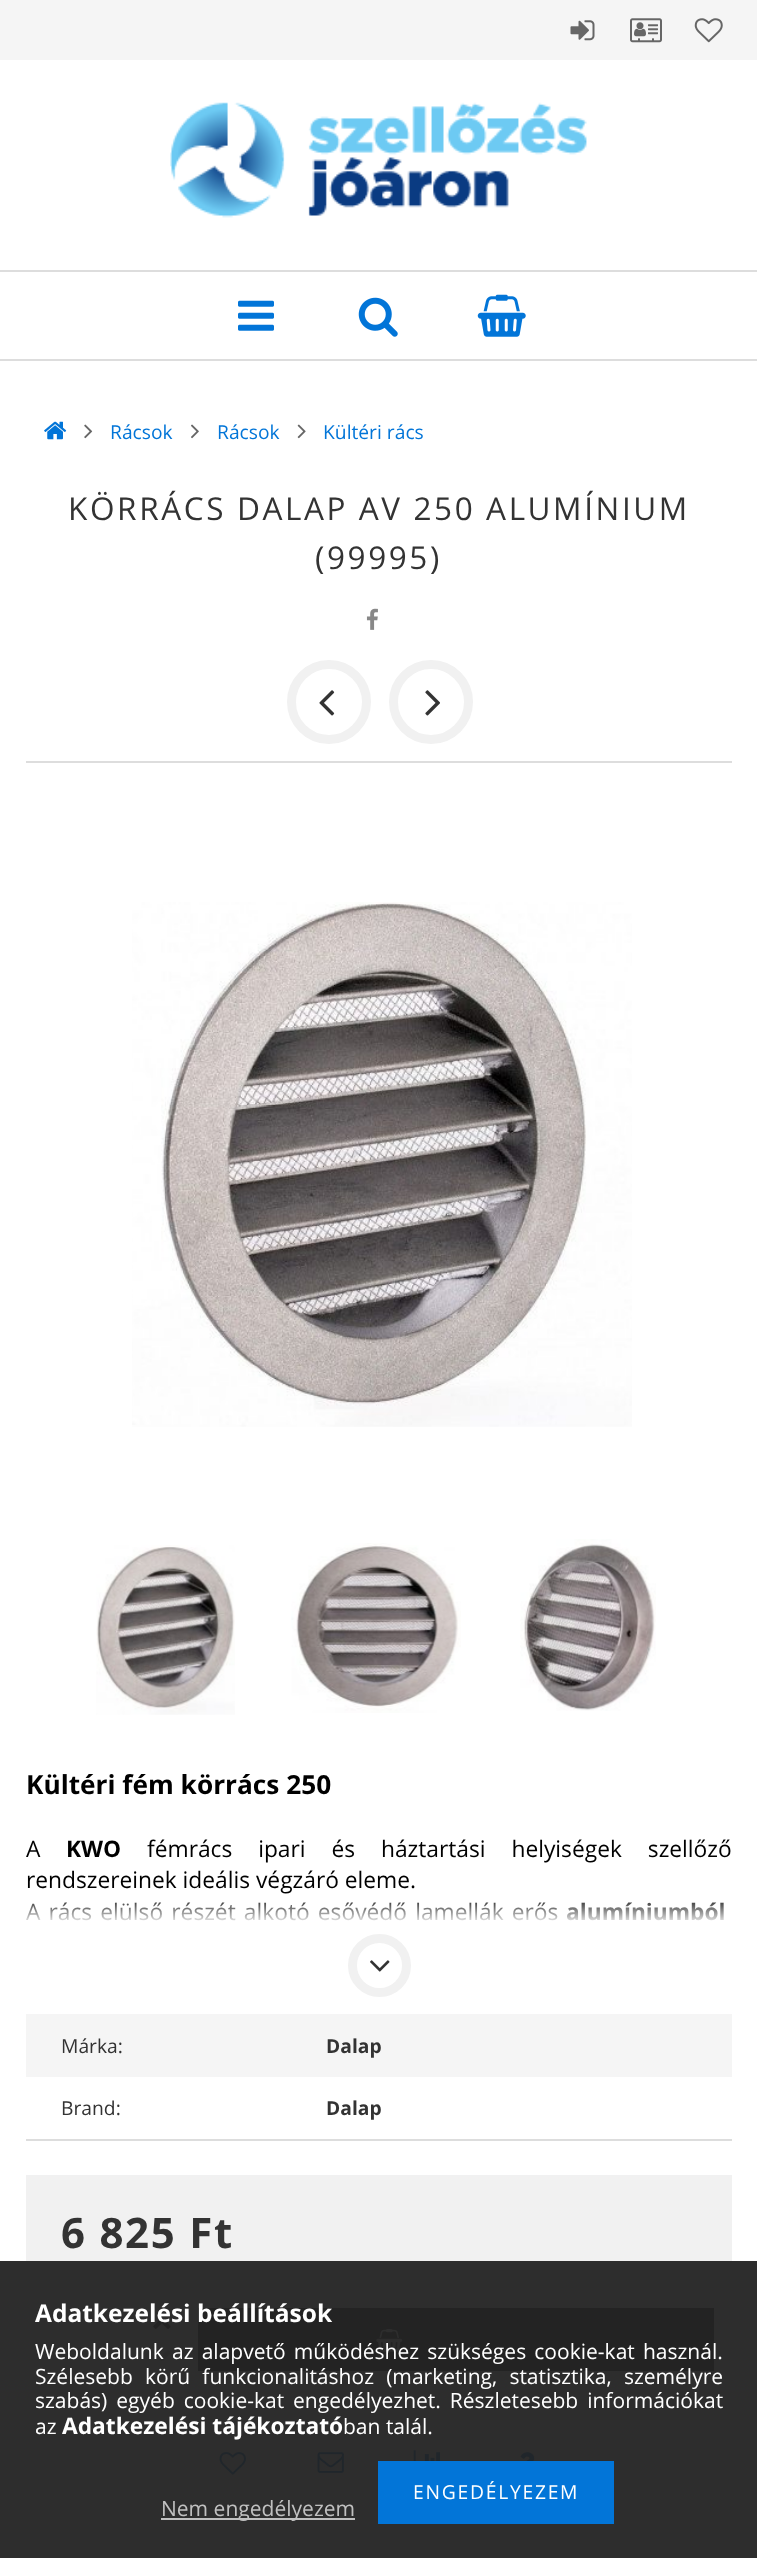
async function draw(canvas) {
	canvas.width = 757;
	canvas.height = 2558;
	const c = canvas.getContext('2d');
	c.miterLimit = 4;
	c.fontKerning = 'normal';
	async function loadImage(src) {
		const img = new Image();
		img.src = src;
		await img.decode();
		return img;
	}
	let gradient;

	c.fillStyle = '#fff';
	c.fillRect(0, 0, 757, 2558);
	c.fillStyle = '#2d2d2d';
	c.fillRect(0, 2261, 757, 297);
	c.fillStyle = '#f5f5f5';
	c.fillRect(0, 0, 757, 60);
	c.drawImage(await loadImage('img1.png'), 570, 20, 25, 21);
	c.drawImage(await loadImage('img2.png'), 630, 18, 32, 25);
	c.drawImage(await loadImage('img3.png'), 694, 18, 29, 25);
	c.drawImage(await loadImage('img4.png'), 170, 102, 417, 116);
	c.fillStyle = '#ddd';
	c.fillRect(0, 270, 757, 2);
	c.fillRect(0, 359, 757, 2);
	c.drawImage(await loadImage('img5.png'), 238, 300, 36, 31);
	c.drawImage(await loadImage('img6.png'), 358, 297, 40, 40);
	c.drawImage(await loadImage('img7.png'), 477, 294, 49, 43);
	c.drawImage(await loadImage('img8.png'), 44, 421, 23, 19);
	c.drawImage(await loadImage('img9.png'), 84, 424, 9, 15);
	c.font = '19.25px Open Sans';
	c.fillStyle = '#0275d8';
	c.fillText('Rácsok', 110, 439);
	c.drawImage(await loadImage('img10.png'), 191, 424, 8, 15);
	c.fillText('Rácsok', 217, 439);
	c.drawImage(await loadImage('img11.png'), 297, 424, 9, 15);
	c.fillText('Kültéri rács', 323, 439);
	c.fillStyle = '#ddd';
	c.fillRect(26, 761, 706, 2);
	c.letterSpacing = '2.6px';
	c.font = '31.5px Open Sans';
	c.fillStyle = '#333';
	c.fillText('KÖRRÁCS DALAP AV 250 ALUMÍNIUM', 68, 520);
	c.fillText('(99995)', 315, 569);
	c.drawImage(await loadImage('img12.png'), 366, 608, 12, 22);
	c.beginPath();
	c.arc(329, 702, 37.5, 0, 2 * Math.PI);
	c.strokeStyle = '#f1f1f1';
	c.lineWidth = 9;
	c.stroke();
	c.drawImage(await loadImage('img13.png'), 319, 690, 16, 26);
	c.beginPath();
	c.arc(431, 702, 37.5, 0, 2 * Math.PI);
	c.stroke();
	c.drawImage(await loadImage('img14.png'), 425, 690, 15, 26);
	c.drawImage(await loadImage('img15.png'), 132, 902, 500, 525);
	c.drawImage(await loadImage('img16.png'), 96, 1545, 139, 170);
	c.drawImage(await loadImage('img17.png'), 291, 1543, 170, 170);
	c.drawImage(await loadImage('img18.png'), 520, 1539, 136, 172);
	c.letterSpacing = '0px';
	c.font = 'bold 26.25px Open Sans';
	c.fillStyle = '#000';
	c.fillText('Kültéri fém körrács 250', 26, 1794);
	c.font = '22.75px Open Sans';
	c.fillText('A', 26, 1857);
	c.font = 'bold 22.75px Open Sans';
	c.fillText('KWO', 66, 1857);
	c.wordSpacing = '20px';
	c.font = '22.75px Open Sans';
	c.fillText('fémrács ipari és háztartási helyiségek szellőző', 147, 1857);
	c.wordSpacing = '0px';
	c.fillText('rendszereinek ideális végzáró eleme.', 26, 1888);
	c.wordSpacing = '2.25px';
	c.fillText('A rács elülső részét alkotó esővédő lamellák erős', 26, 1920);
	c.wordSpacing = '0px';
	c.font = 'bold 22.75px Open Sans';
	c.fillText('alumíniumból', 566, 1920);
	gradient = c.createLinearGradient(379, 1894, 379, 1925);
	gradient.addColorStop(0, '#ffffff00');
	gradient.addColorStop(1, '#fff');
	c.fillStyle = gradient;
	c.fillRect(26, 1902, 699, 19);
	c.beginPath();
	c.arc(379.5, 1965.5, 27, 0, 2 * Math.PI);
	c.stroke();
	c.drawImage(await loadImage('img19.png'), 370, 1960, 20, 12);
	c.fillStyle = '#ddd';
	c.fillRect(26, 2139, 706, 2);
	c.fillStyle = '#f5f5f5';
	c.fillRect(26, 2014, 706, 63);
	c.font = '19.25px Open Sans';
	c.fillStyle = '#333';
	c.fillText('Márka:', 61, 2053);
	c.font = 'bold 19.25px Open Sans';
	c.fillText('Dalap', 326, 2053);
	c.font = '19.25px Open Sans';
	c.fillText('Brand:', 61, 2115);
	c.font = 'bold 19.25px Open Sans';
	c.fillText('Dalap', 326, 2115);
	c.fillStyle = '#f1f1f1';
	c.fillRect(26, 2175, 706, 86);
	c.letterSpacing = '1.75px';
	c.font = 'bold 42px Open Sans';
	c.fillStyle = '#333';
	c.fillText('6 825 Ft', 61, 2248);
	c.drawImage(await loadImage('img20.png'), 153, 2318, 18, 11);
	c.drawImage(await loadImage('img21.png'), 153, 2350, 18, 11);
	c.fillStyle = '#232323';
	c.fillRect(198, 2308, 516, 63);
	c.drawImage(await loadImage('img22.png'), 376, 2329, 27, 23);
	c.drawImage(await loadImage('img23.png'), 219, 2452, 27, 23);
	c.drawImage(await loadImage('img24.png'), 317, 2452, 27, 21);
	c.drawImage(await loadImage('img25.png'), 413, 2450, 27, 11);
	c.drawImage(await loadImage('img26.png'), 520, 2452, 15, 9);
	c.letterSpacing = '0px';
	c.font = 'bold 24.5px Open Sans';
	c.fillStyle = '#fff';
	c.fillText('Adatkezelési beállítások', 35, 2322);
	c.wordSpacing = '2.75px';
	c.font = '21px Open Sans';
	c.fillText('Weboldalunk az alapvető működéshez szükséges cookie-kat használ.', 35, 2359);
	c.wordSpacing = '6.75px';
	c.fillText('Szélesebb körű funkcionalitáshoz (marketing, statisztika, személyre', 35, 2384);
	c.wordSpacing = '3.5px';
	c.fillText('szabás) egyéb cookie-kat engedélyezhet. Részletesebb információkat', 35, 2408);
	c.wordSpacing = '0px';
	c.fillText('az', 35, 2434);
	c.font = 'bold 22.75px Open Sans';
	c.fillText('Adatkezelési tájékoztató', 62, 2434);
	c.font = '21px Open Sans';
	c.fillText('ban talál.', 343, 2434);
	c.fillStyle = '#0275d8';
	c.fillRect(378, 2461, 236, 63);
	c.letterSpacing = '1.75px';
	c.font = '19.25px Open Sans';
	c.fillStyle = '#fff';
	c.fillText('ENGEDÉLYEZEM', 413, 2499);
	c.fillStyle = '#c0c0c0';
	c.fillRect(161, 2518, 194, 2);
	c.letterSpacing = '0px';
	c.font = '21px Open Sans';
	c.fillText('Nem engedélyezem', 161, 2516);
}

draw(document.querySelector('canvas'));
